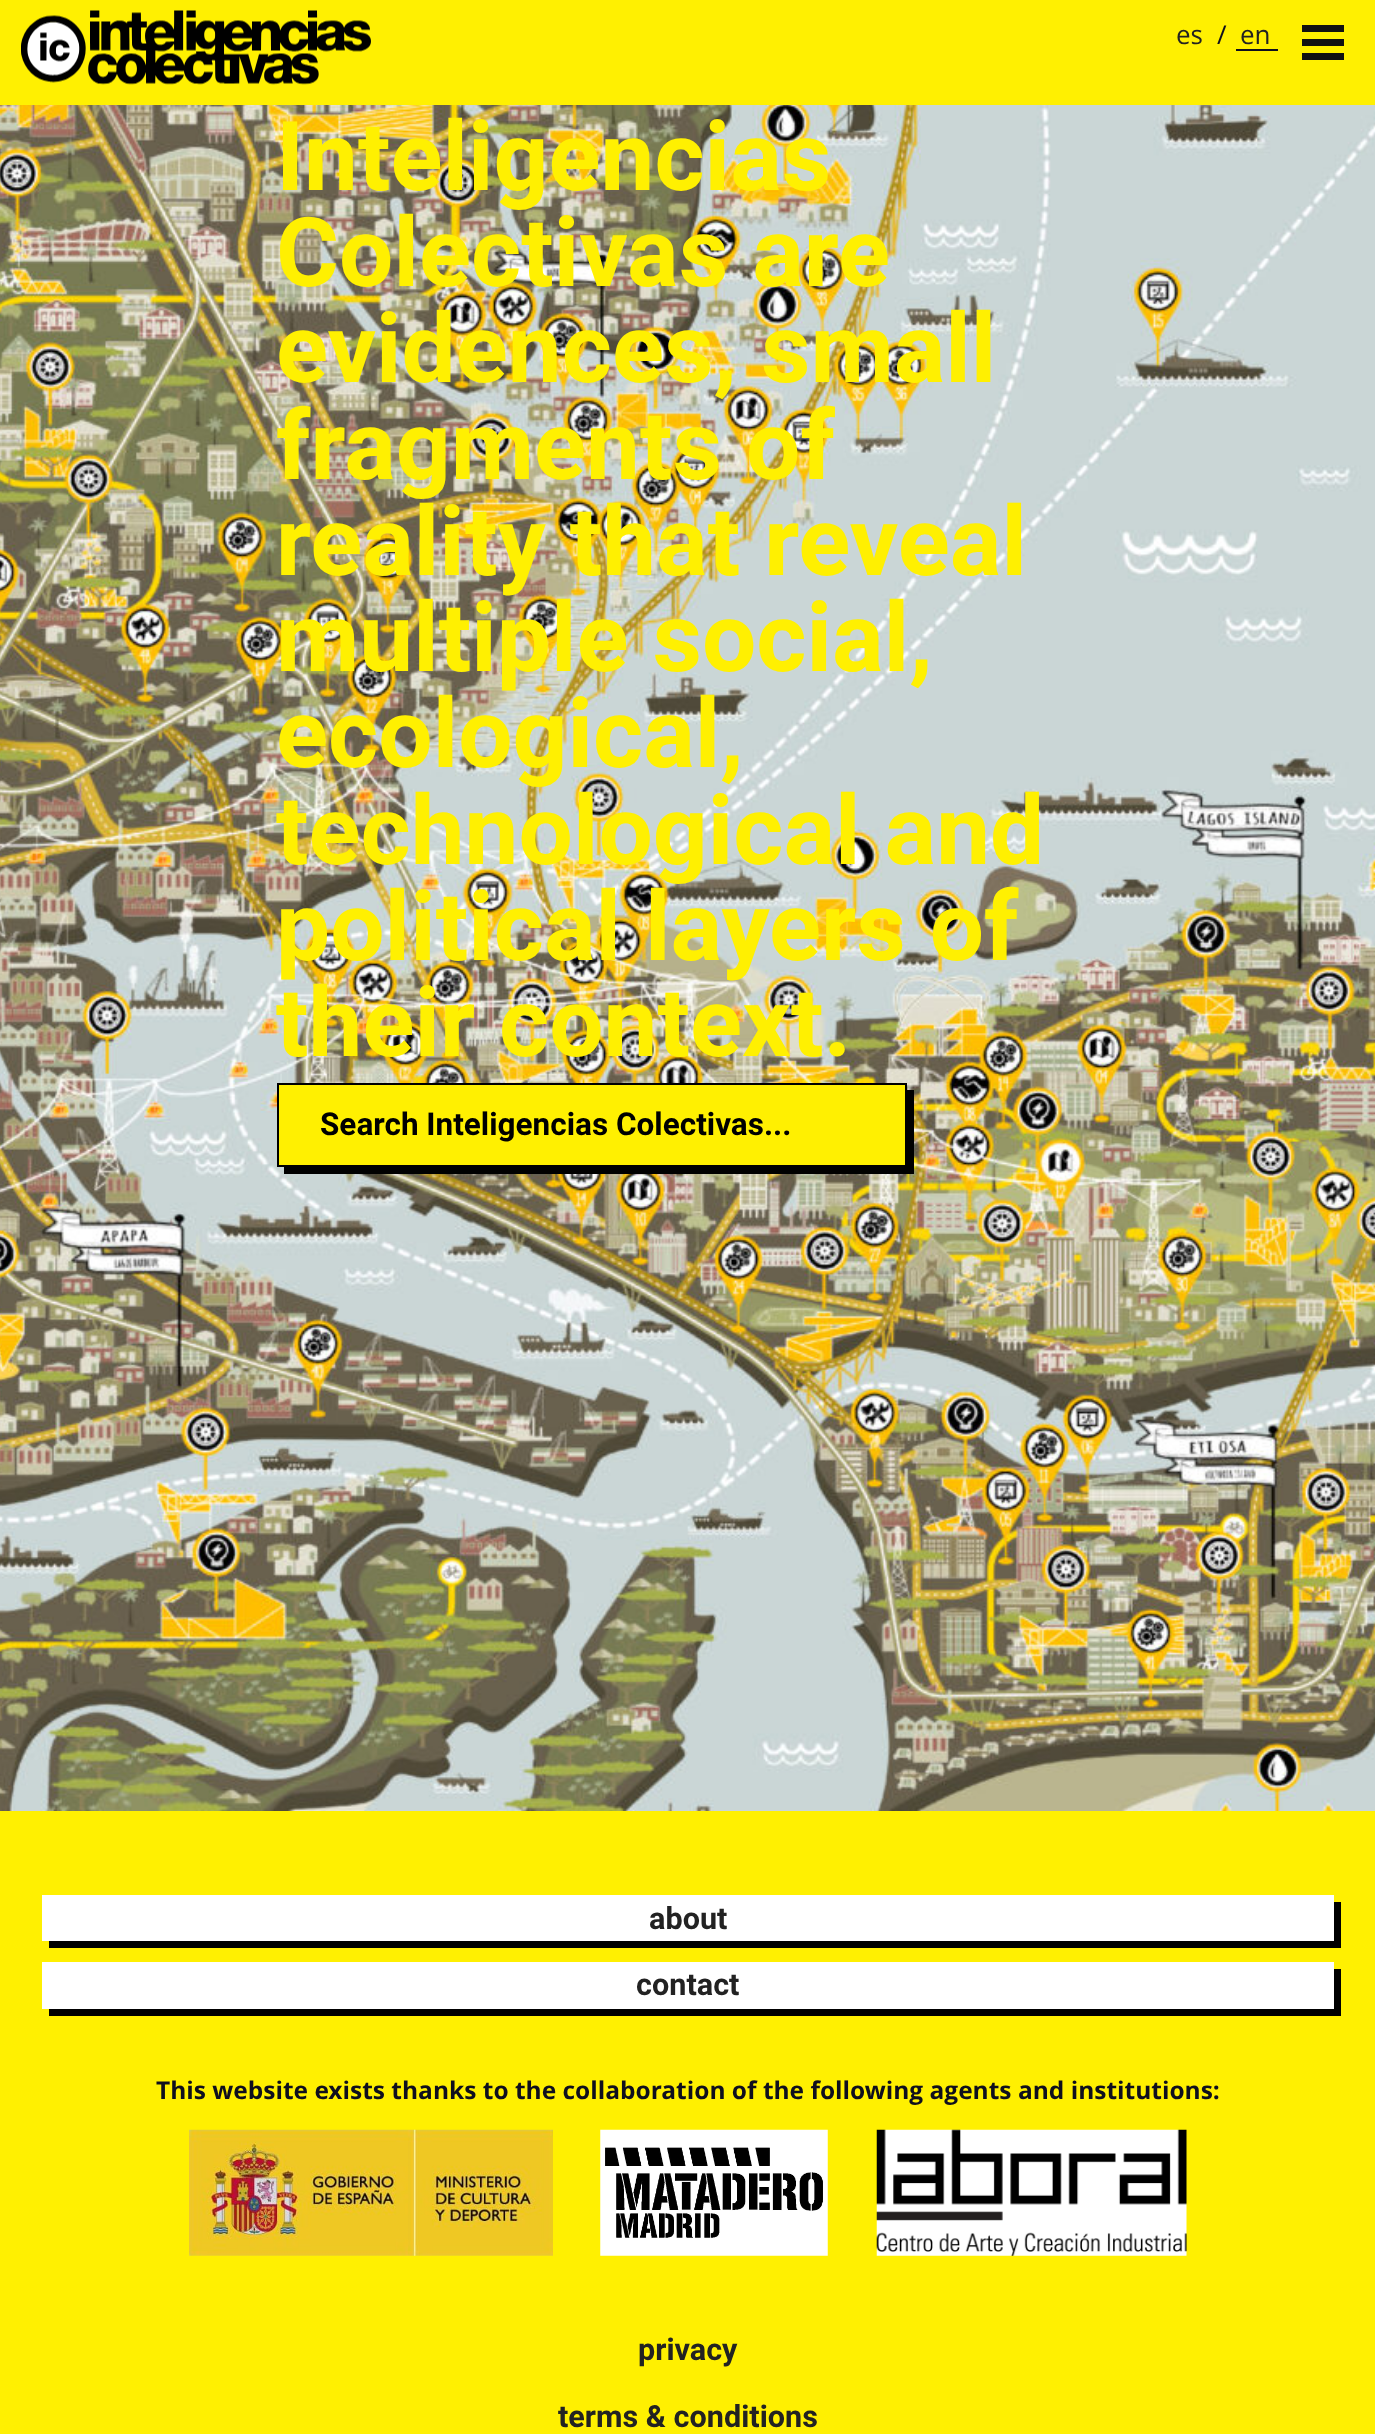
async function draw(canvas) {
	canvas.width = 1375;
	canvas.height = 2434;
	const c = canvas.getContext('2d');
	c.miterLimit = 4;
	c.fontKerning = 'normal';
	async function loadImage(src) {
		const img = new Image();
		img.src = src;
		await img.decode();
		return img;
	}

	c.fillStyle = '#fff';
	c.fillRect(0, 0, 1375, 2434);
	c.fillStyle = '#fff001';
	c.fillRect(0, 0, 1375, 105);
	c.drawImage(await loadImage('img1.png'), 21, 10, 350, 75);
	c.font = '26px Open Sans';
	c.fillStyle = '#222';
	c.fillText('es', 1176, 44);
	c.fillStyle = '#0f0f1e';
	c.fillText('/', 1217, 44);
	c.fillStyle = '#222';
	c.fillText('en', 1240, 44);
	for (const [x, y, w, h, color] of [
		[1236, 49, 42, 2, '#0f0f1e'],
		[1302, 25, 42, 7, '#111'],
		[1302, 39, 42, 7, '#111'],
		[1302, 53, 42, 7, '#111'],
	]) {
		c.fillStyle = color;
		c.fillRect(x, y, w, h);
	}
	c.drawImage(await loadImage('img2.png'), 0, 105, 1375, 1706);
	c.font = 'bold 96.25px Roboto';
	c.fillStyle = '#fff001';
	for (const [text, x, y] of [
		['Inteligencias', 276, 190],
		['Colectivas are', 276, 286],
		['evidences, small', 276, 382],
		['fragments of', 276, 479],
		['reality that reveal', 276, 575],
		['multiple social,', 276, 671],
		['ecological,', 276, 767],
		['technological and', 276, 864],
		['political layers of', 276, 960],
		['their context.', 276, 1056],
	]) {
		c.fillText(text, x, y);
	}
	c.fillStyle = '#000';
	c.beginPath();
	c.moveTo(284, 1167);
	c.lineTo(284, 1174);
	c.lineTo(914, 1174);
	c.lineTo(914, 1090);
	c.lineTo(906, 1090);
	c.lineTo(906, 1167);
	c.closePath();
	c.fill();
	c.fillStyle = '#fff001';
	c.beginPath();
	c.rect(278, 1084, 628, 82);
	c.fill();
	c.strokeStyle = '#000';
	c.lineWidth = 2;
	c.stroke();
	c.font = 'bold 31.5px Roboto';
	c.fillStyle = '#000';
	c.fillText('Search Inteligencias Colectivas...', 320, 1135);
	c.fillStyle = '#fff001';
	c.fillRect(0, 1811, 1375, 623);
	c.fillStyle = '#000';
	c.beginPath();
	c.moveTo(49, 1941);
	c.lineTo(49, 1948);
	c.lineTo(1341, 1948);
	c.lineTo(1341, 1902);
	c.lineTo(1334, 1902);
	c.lineTo(1334, 1941);
	c.closePath();
	c.fill();
	c.fillStyle = '#fff';
	c.fillRect(42, 1895, 1292, 46);
	c.font = 'bold 30.6px Roboto';
	c.fillStyle = '#222';
	c.fillText('about', 649, 1929);
	c.fillStyle = '#000';
	c.beginPath();
	c.moveTo(49, 2009);
	c.lineTo(49, 2016);
	c.lineTo(1341, 2016);
	c.lineTo(1341, 1969);
	c.lineTo(1334, 1969);
	c.lineTo(1334, 2009);
	c.closePath();
	c.fill();
	c.fillStyle = '#fff';
	c.fillRect(42, 1962, 1292, 47);
	c.fillStyle = '#222';
	c.fillText('contact', 636, 1995);
	c.font = 'bold 24.5px Open Sans';
	c.fillStyle = '#0f0f1e';
	c.fillText('This website exists thanks to the collaboration of the following agents and institutions:', 156, 2099);
	c.drawImage(await loadImage('img3.png'), 189, 2129, 364, 127);
	c.drawImage(await loadImage('img4.png'), 600, 2129, 228, 127);
	c.drawImage(await loadImage('img5.png'), 876, 2129, 311, 127);
	c.font = 'bold 30.6px Roboto';
	c.fillStyle = '#222';
	c.fillText('privacy', 638, 2360);
	c.fillText('terms & conditions', 558, 2427);
}

draw(document.querySelector('canvas'));
